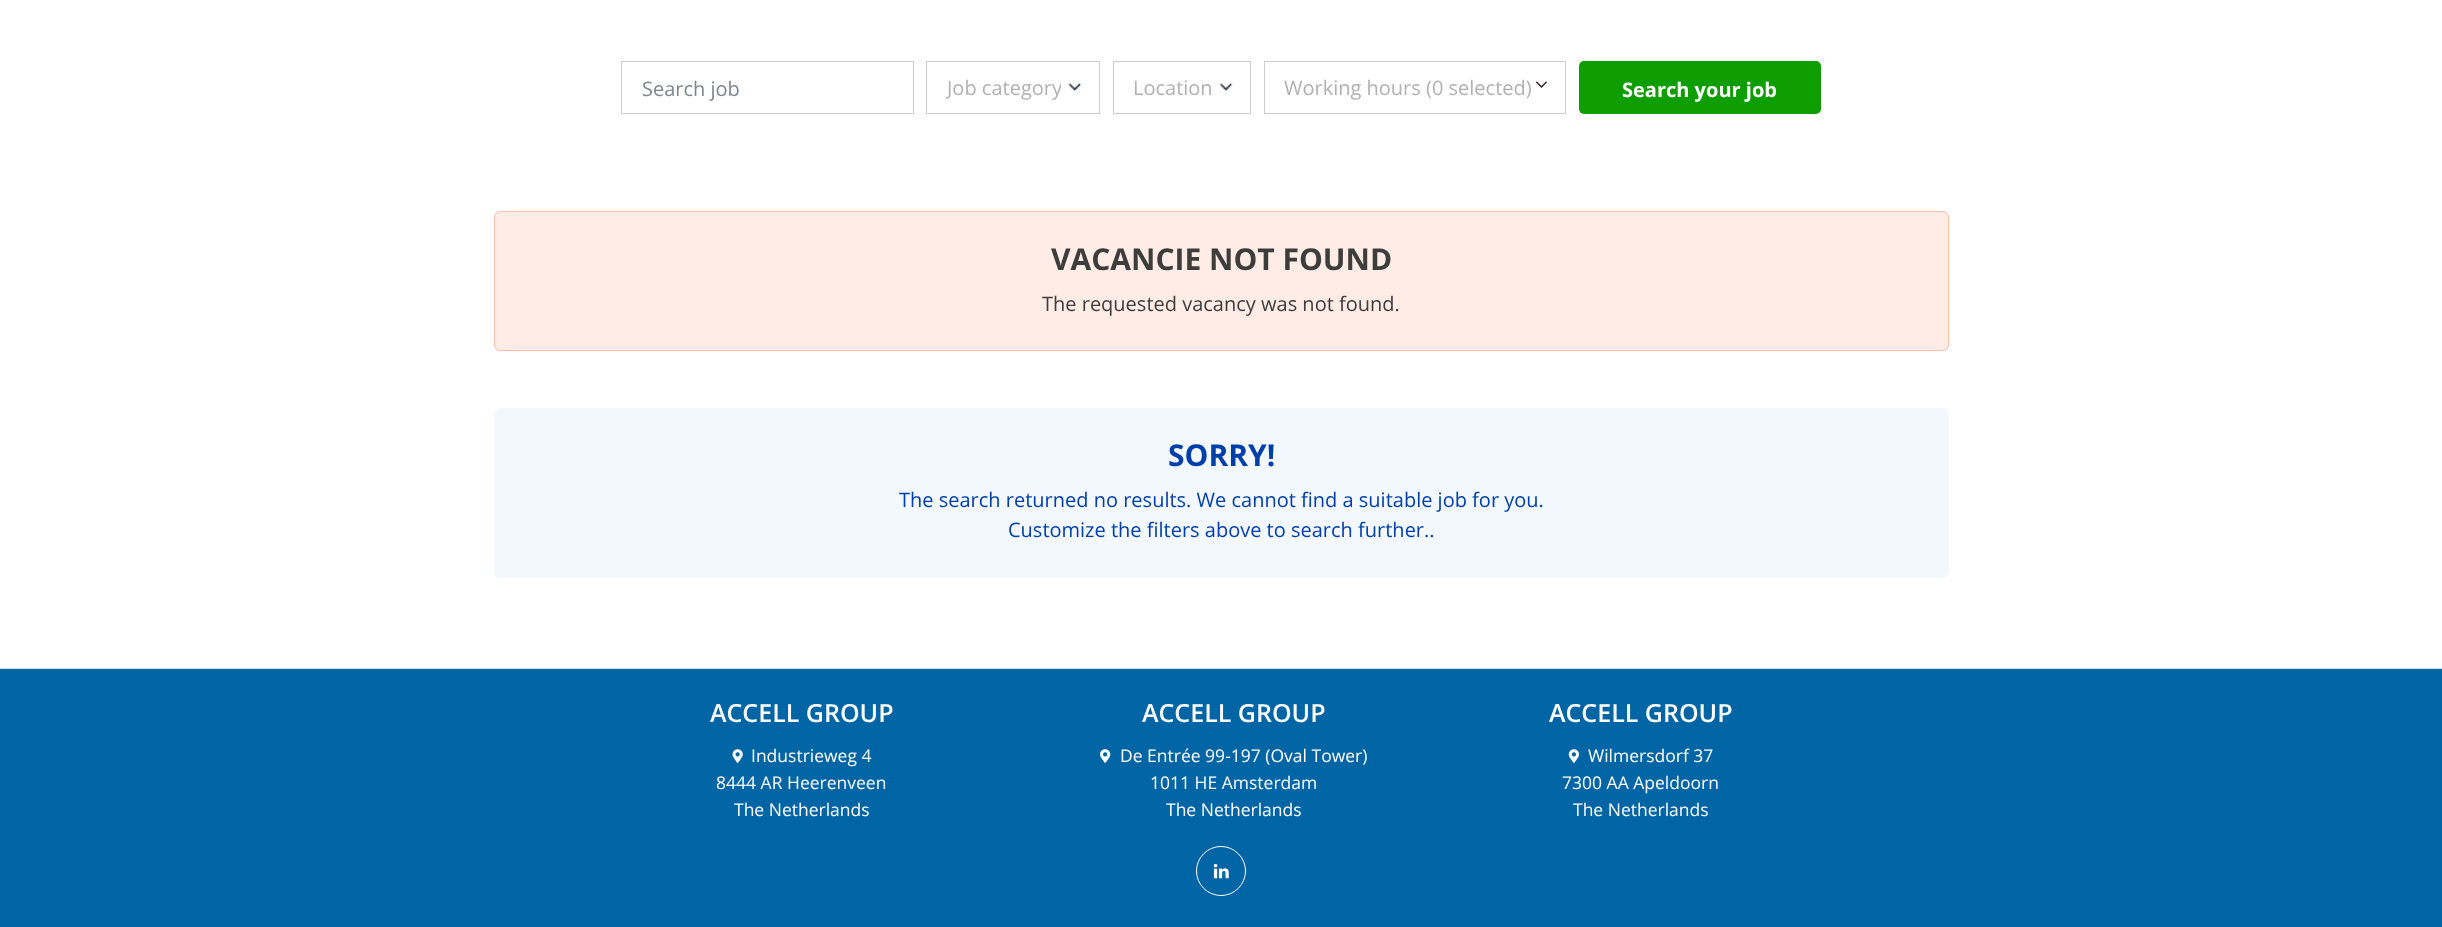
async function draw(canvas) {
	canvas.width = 2442;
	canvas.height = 927;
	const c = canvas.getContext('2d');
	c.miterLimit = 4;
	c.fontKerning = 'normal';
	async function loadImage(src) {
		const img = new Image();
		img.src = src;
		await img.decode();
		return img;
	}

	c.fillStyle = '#fff';
	c.fillRect(0, 0, 2442, 927);
	c.strokeStyle = '#cdcdcd';
	c.strokeRect(621.5, 61.5, 292, 52);
	c.font = '20px Open Sans';
	c.fillStyle = '#81858d';
	c.fillText('Search job', 642, 96);
	c.drawImage(await loadImage('img1.png'), 1068, 83, 14, 9);
	c.strokeRect(926.5, 61.5, 173, 52);
	c.save();
	c.beginPath();
	c.rect(946, 74, 115, 29);
	c.clip();
	c.fillStyle = '#b1b1b1';
	c.fillText('Job category', 947, 95);
	c.restore();
	c.drawImage(await loadImage('img2.png'), 1219, 83, 14, 9);
	c.strokeRect(1113.5, 61.5, 137, 52);
	c.fillStyle = '#b1b1b1';
	c.fillText('Location', 1133, 95);
	c.strokeRect(1264.5, 61.5, 301, 52);
	c.fillText('Working hours (0 selected)', 1284, 95);
	c.drawImage(await loadImage('img3.png'), 1535, 81, 12, 7);
	c.fillStyle = '#0f9e02';
	c.beginPath();
	c.roundRect(1579, 61, 242, 53, 5);
	c.fill();
	c.font = 'bold 20px Open Sans';
	c.fillStyle = '#fff';
	c.fillText('Search your job', 1622, 97);
	c.fillStyle = '#d8e3e7';
	c.fillRect(0, 668, 2442, 1);
	c.fillStyle = '#ffece6';
	c.beginPath();
	c.roundRect(494, 211, 1455, 140, 6);
	c.fill();
	c.beginPath();
	c.roundRect(494.5, 211.5, 1454, 139, 5.5);
	c.strokeStyle = '#ff3d0040';
	c.stroke();
	c.font = 'bold 30px Open Sans';
	c.fillStyle = '#3d3d3c';
	c.fillText('VACANCIE NOT FOUND', 1051, 270);
	c.font = '20px Open Sans';
	c.fillText('The requested vacancy was not found.', 1042, 311);
	c.fillStyle = '#f3f8ff';
	c.beginPath();
	c.roundRect(494, 408, 1455, 170, 6);
	c.fill();
	c.font = 'bold 30px Open Sans';
	c.fillStyle = '#003fa9';
	c.fillText('SORRY!', 1168, 466);
	c.font = '20px Open Sans';
	c.fillText('The search returned no results. We cannot find a suitable job for you.', 899, 507);
	c.fillText('Customize the filters above to search further..', 1008, 537);
	c.fillStyle = '#0065a5';
	c.fillRect(0, 669, 2442, 258);
	c.font = '600 25px Open Sans';
	c.fillStyle = '#fff';
	c.fillText('ACCELL GROUP', 710, 722);
	c.drawImage(await loadImage('img4.png'), 732, 749, 11, 14);
	c.font = '17.5px Open Sans';
	for (const [text, x, y] of [
		['Industrieweg 4', 751, 762],
		['8444 AR Heerenveen', 716, 789],
		['The Netherlands', 734, 816],
	]) {
		c.fillText(text, x, y);
	}
	c.font = '600 25px Open Sans';
	c.fillText('ACCELL GROUP', 1142, 722);
	c.drawImage(await loadImage('img5.png'), 1100, 749, 11, 14);
	c.font = '17.5px Open Sans';
	for (const [text, x, y] of [
		['De Entrée 99-197 (Oval Tower)', 1120, 762],
		['1011 HE Amsterdam', 1150, 789],
		['The Netherlands', 1166, 816],
	]) {
		c.fillText(text, x, y);
	}
	c.font = '600 25px Open Sans';
	c.fillText('ACCELL GROUP', 1549, 722);
	c.drawImage(await loadImage('img6.png'), 1568, 749, 12, 14);
	c.font = '17.5px Open Sans';
	for (const [text, x, y] of [
		['Wilmersdorf 37', 1588, 762],
		['7300 AA Apeldoorn', 1562, 789],
		['The Netherlands', 1573, 816],
	]) {
		c.fillText(text, x, y);
	}
	c.beginPath();
	c.arc(1221, 871, 24.5, 0, 2 * Math.PI);
	c.strokeStyle = '#fff';
	c.stroke();
	c.drawImage(await loadImage('img7.png'), 1213, 864, 16, 15);
}

draw(document.querySelector('canvas'));
